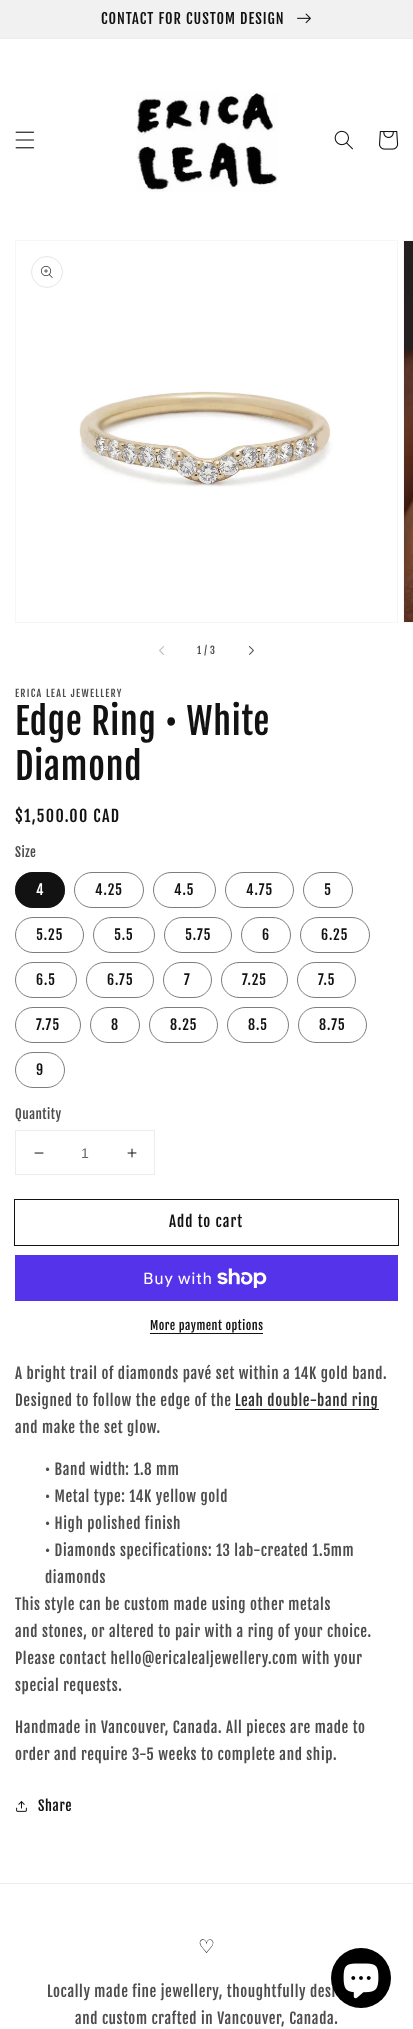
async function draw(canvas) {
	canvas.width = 413;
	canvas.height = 2029;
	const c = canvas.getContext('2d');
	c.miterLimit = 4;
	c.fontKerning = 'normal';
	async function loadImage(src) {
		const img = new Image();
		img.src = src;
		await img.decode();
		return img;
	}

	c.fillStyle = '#fff';
	c.fillRect(0, 0, 413, 2029);
	c.fillStyle = '#ececec';
	c.fillRect(0, 38, 413, 1);
	c.fillStyle = '#f1f1f1';
	c.fillRect(0, 0, 413, 38);
	c.letterSpacing = '1px';
	c.font = '14.4px Fjalla One';
	c.fillStyle = '#121212';
	c.fillText('CONTACT FOR CUSTOM DESIGN', 101, 24);
	c.drawImage(await loadImage('img1.png'), 297, 13, 14, 11);
	c.drawImage(await loadImage('img2.png'), 15, 131, 20, 18);
	c.drawImage(await loadImage('img3.png'), 136, 92, 142, 100);
	c.drawImage(await loadImage('img4.png'), 334, 130, 19, 20);
	c.drawImage(await loadImage('img5.png'), 379, 131, 20, 19);
	c.strokeStyle = '#f6f6f6';
	c.strokeRect(15.5, 240.5, 382, 382);
	c.beginPath();
	c.arc(47, 272, 15.5, 0, 2 * Math.PI);
	c.strokeStyle = '#e7e7e7';
	c.stroke();
	c.drawImage(await loadImage('img6.png'), 41, 266, 12, 12);
	c.drawImage(await loadImage('img7.png'), 77, 391, 270, 96);
	c.strokeStyle = '#f6f6f6';
	c.strokeRect(403.5, 240.5, 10, 382);
	c.drawImage(await loadImage('img8.png'), 404, 241, 9, 381);
	c.drawImage(await loadImage('img9.png'), 159, 646, 5, 9);
	c.letterSpacing = '0.5px';
	c.font = '10px Fjalla One';
	c.fillStyle = '#4d4d4d';
	c.fillText('1 / 3', 197, 654);
	c.drawImage(await loadImage('img10.png'), 249, 646, 5, 9);
	c.letterSpacing = '1.3px';
	c.fillText('ERICA LEAL JEWELLERY', 15, 697);
	c.letterSpacing = '0.75px';
	c.font = '36px Fjalla One';
	c.fillStyle = '#121212';
	c.fillText('Edge Ring • White', 15, 735);
	c.fillText('Diamond', 15, 780);
	c.letterSpacing = '1.3px';
	c.font = '16px Fjalla One';
	c.fillText('$1,500.00 CAD', 15, 822);
	c.letterSpacing = '0.5px';
	c.font = '13px Fjalla One';
	c.fillStyle = '#4d4d4d';
	c.fillText('Size', 15, 857);
	c.fillStyle = '#121212';
	c.beginPath();
	c.roundRect(15, 872, 50, 36, 18);
	c.fill();
	c.beginPath();
	c.roundRect(15.5, 872.5, 49, 35, 17.5);
	c.strokeStyle = '#1212128c';
	c.stroke();
	c.letterSpacing = '1px';
	c.font = '14px Fjalla One';
	c.fillStyle = '#fff';
	c.fillText('4', 36, 895);
	c.beginPath();
	c.roundRect(74.5, 872.5, 69, 35, 17.5);
	c.strokeStyle = '#7d7d7d';
	c.stroke();
	c.fillStyle = '#121212';
	c.fillText('4.25', 95, 895);
	c.beginPath();
	c.roundRect(153.5, 872.5, 62, 35, 17.5);
	c.stroke();
	c.fillText('4.5', 174, 895);
	c.beginPath();
	c.roundRect(225.5, 872.5, 68, 35, 17.5);
	c.stroke();
	c.fillText('4.75', 246, 895);
	c.beginPath();
	c.roundRect(303.5, 872.5, 49, 35, 17.5);
	c.stroke();
	c.fillText('5', 324, 895);
	c.beginPath();
	c.roundRect(15.5, 917.5, 68, 35, 17.5);
	c.stroke();
	c.fillText('5.25', 36, 940);
	c.beginPath();
	c.roundRect(93.5, 917.5, 61, 35, 17.5);
	c.stroke();
	c.fillText('5.5', 114, 940);
	c.beginPath();
	c.roundRect(164.5, 917.5, 67, 35, 17.5);
	c.stroke();
	c.fillText('5.75', 185, 940);
	c.beginPath();
	c.roundRect(241.5, 917.5, 49, 35, 17.5);
	c.stroke();
	c.fillText('6', 262, 940);
	c.beginPath();
	c.roundRect(300.5, 917.5, 69, 35, 17.5);
	c.stroke();
	c.fillText('6.25', 321, 940);
	c.beginPath();
	c.roundRect(15.5, 962.5, 61, 35, 17.5);
	c.stroke();
	c.fillText('6.5', 36, 985);
	c.beginPath();
	c.roundRect(86.5, 962.5, 67, 35, 17.5);
	c.stroke();
	c.fillText('6.75', 107, 985);
	c.beginPath();
	c.roundRect(163.5, 962.5, 48, 35, 17.5);
	c.stroke();
	c.fillText('7', 184, 985);
	c.beginPath();
	c.roundRect(221.5, 962.5, 66, 35, 17.5);
	c.stroke();
	c.fillText('7.25', 242, 985);
	c.beginPath();
	c.roundRect(297.5, 962.5, 58, 35, 17.5);
	c.stroke();
	c.fillText('7.5', 318, 985);
	c.beginPath();
	c.roundRect(15.5, 1007.5, 65, 35, 17.5);
	c.stroke();
	c.fillText('7.75', 36, 1030);
	c.beginPath();
	c.roundRect(90.5, 1007.5, 49, 35, 17.5);
	c.stroke();
	c.fillText('8', 111, 1030);
	c.beginPath();
	c.roundRect(149.5, 1007.5, 68, 35, 17.5);
	c.stroke();
	c.fillText('8.25', 170, 1030);
	c.beginPath();
	c.roundRect(227.5, 1007.5, 61, 35, 17.5);
	c.stroke();
	c.fillText('8.5', 248, 1030);
	c.beginPath();
	c.roundRect(298.5, 1007.5, 68, 35, 17.5);
	c.stroke();
	c.fillText('8.75', 319, 1030);
	c.beginPath();
	c.roundRect(15.5, 1052.5, 49, 35, 17.5);
	c.stroke();
	c.fillText('9', 36, 1075);
	c.letterSpacing = '0.5px';
	c.font = '13px Fjalla One';
	c.fillStyle = '#4d4d4d';
	c.fillText('Quantity', 15, 1119);
	c.strokeStyle = '#ececec';
	c.strokeRect(15.5, 1130.5, 139, 44);
	c.drawImage(await loadImage('img11.png'), 34, 1152, 10, 2);
	c.letterSpacing = '0px';
	c.font = '14px Liberation Sans';
	c.fillStyle = '#686868';
	c.fillText('1', 81, 1158);
	c.drawImage(await loadImage('img12.png'), 127, 1148, 10, 10);
	c.strokeStyle = '#121212';
	c.strokeRect(14.5, 1199.5, 384, 46);
	c.letterSpacing = '1px';
	c.font = '15px Fjalla One';
	c.fillStyle = '#121212';
	c.fillText('Add to cart', 169, 1227);
	c.fillStyle = '#5433eb';
	c.fillRect(15, 1255, 383, 46);
	c.letterSpacing = '0.6px';
	c.font = '16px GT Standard';
	c.fillStyle = '#fff';
	c.fillText('Buy with', 143, 1284);
	c.drawImage(await loadImage('img13.png'), 217, 1268, 50, 20);
	c.letterSpacing = '0.5px';
	c.font = '12px Fjalla One';
	c.fillStyle = '#121212';
	c.fillText('More payment options', 150, 1330);
	c.fillRect(150, 1333, 113, 1);
	c.letterSpacing = '0.6px';
	c.font = '15px Fjalla One';
	c.fillStyle = '#4d4d4d';
	c.fillText('A bright trail of diamonds pavé set within a 14K gold band.', 15, 1379);
	c.fillText('Designed to follow the edge of the', 15, 1406);
	c.fillStyle = '#171717';
	c.fillRect(235, 1409, 144, 1);
	c.fillStyle = '#353535';
	c.fillText('Leah double-band ring', 235, 1406);
	c.fillStyle = '#4d4d4d';
	for (const [text, x, y] of [
		['and make the set glow.', 15, 1433],
		['• Band width: 1.8 mm', 45, 1475],
		['• Metal type: 14K yellow gold', 45, 1502],
		['• High polished finish', 45, 1529],
		['• Diamonds specifications: 13 lab-created 1.5mm', 45, 1556],
		['diamonds', 45, 1583],
		['This style can be custom made using other metals', 15, 1610],
		['and stones, or altered to pair with a ring of your choice.', 15, 1637],
		['Please contact hello@ericalealjewellery.com with your', 15, 1664],
		['special requests.', 15, 1691],
		['Handmade in Vancouver, Canada. All pieces are made to', 15, 1733],
		['order and require 3-5 weeks to complete and ship.', 15, 1760],
	]) {
		c.fillText(text, x, y);
	}
	c.drawImage(await loadImage('img14.png'), 16, 1801, 11, 11);
	c.font = '14px Fjalla One';
	c.fillStyle = '#121212';
	c.fillText('Share', 38, 1811);
	c.fillStyle = '#ececec';
	c.fillRect(0, 1883, 413, 1);
	c.letterSpacing = '0.75px';
	c.font = '19px DejaVu Sans';
	c.fillStyle = '#121212';
	c.fillText('♡', 198, 1953);
	c.letterSpacing = '0.6px';
	c.font = '15px Fjalla One';
	c.fillStyle = '#4d4d4d';
	c.fillText('Locally made fine jewellery, thoughtfully desi', 47, 1997);
	c.fillText('and custom crafted in Vancouver, Canada.', 75, 2024);
	c.fillStyle = '#000';
	c.beginPath();
	c.arc(361, 1978, 30, 0, 2 * Math.PI);
	c.fill();
	c.drawImage(await loadImage('img15.png'), 343, 1963, 36, 36);
}

draw(document.querySelector('canvas'));
